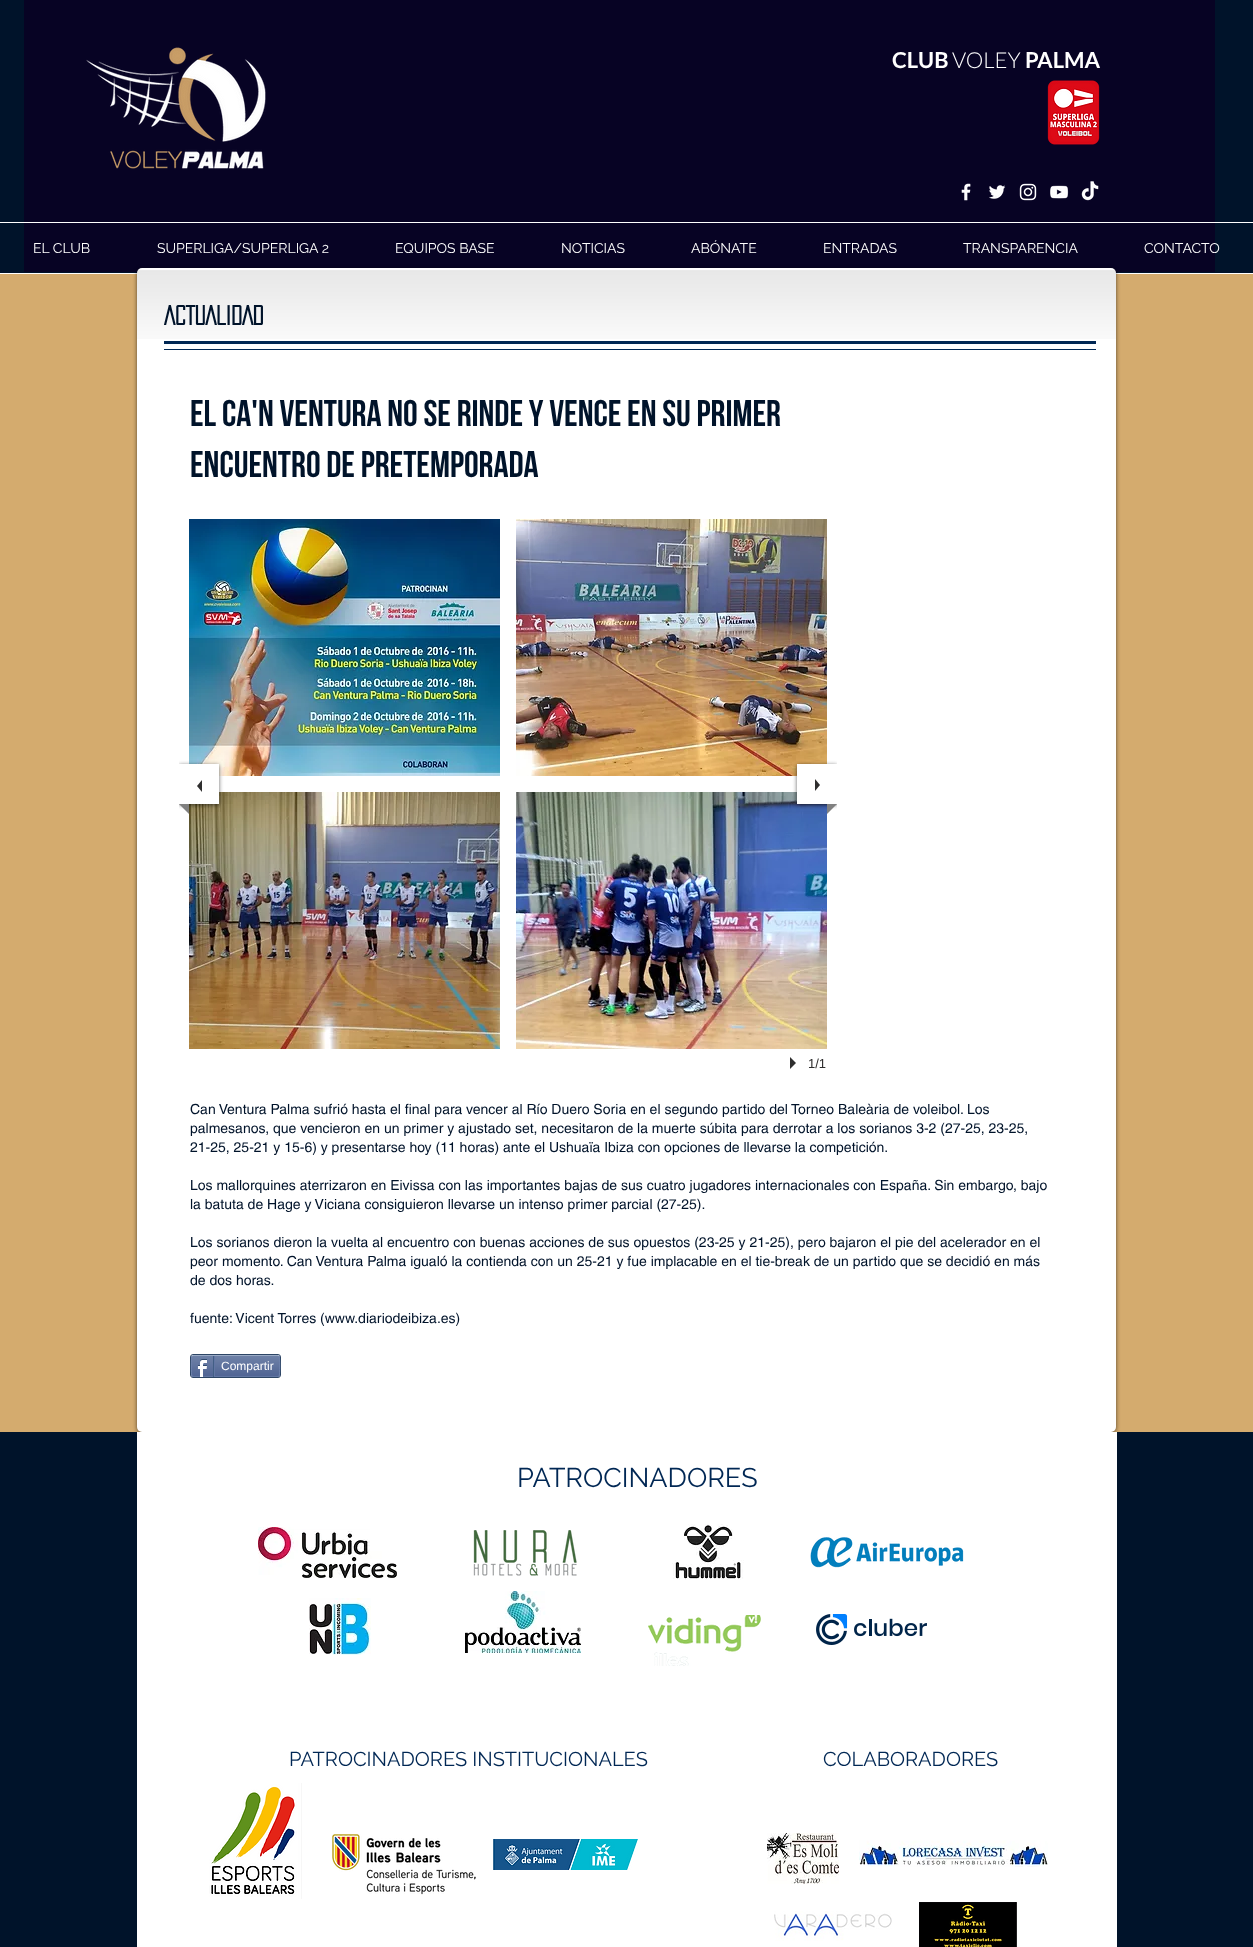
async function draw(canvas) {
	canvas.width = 1253;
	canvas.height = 1947;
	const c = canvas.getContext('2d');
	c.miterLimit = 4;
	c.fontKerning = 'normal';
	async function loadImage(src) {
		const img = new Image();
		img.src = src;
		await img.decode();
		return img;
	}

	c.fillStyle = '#d4ab6e';
	c.fillRect(0, 0, 1253, 1947);
	c.fillStyle = '#00132a';
	c.fillRect(0, 0, 1253, 273);
	c.fillStyle = '#070324';
	c.fillRect(24, 0, 1191, 272);
	c.drawImage(await loadImage('img1.png'), 86, 47, 180, 122);
	c.font = 'bold 22px Lato';
	c.fillStyle = '#fff';
	c.fillText('CLUB', 892, 68);
	c.font = '300 22px Lato';
	c.fillText('VOLEY', 952, 68);
	c.font = 'bold 22px Lato';
	c.fillText('PALMA', 1025, 68);
	c.drawImage(await loadImage('img2.png'), 1047, 80, 53, 65);
	c.drawImage(await loadImage('img3.png'), 961, 183, 10, 18);
	c.drawImage(await loadImage('img4.png'), 989, 185, 17, 14);
	c.drawImage(await loadImage('img5.png'), 1019, 183, 18, 18);
	c.drawImage(await loadImage('img6.png'), 1050, 185, 19, 14);
	c.drawImage(await loadImage('img7.png'), 1081, 181, 18, 20);
	c.fillRect(0, 222, 1253, 1);
	c.fillRect(0, 273, 1253, 1);
	c.font = '14px Raleway';
	for (const [text, x, y] of [
		['EL CLUB', 33, 253],
		['SUPERLIGA/SUPERLIGA 2', 157, 253],
		['EQUIPOS BASE', 395, 253],
		['NOTICIAS', 561, 253],
		['ABÓNATE', 691, 253],
		['ENTRADAS', 823, 253],
		['TRANSPARENCIA', 963, 253],
		['CONTACTO', 1144, 253],
	]) {
		c.fillText(text, x, y);
	}
	c.fillStyle = '#070324';
	c.fillRect(137, 272, 980, 1);
	c.fillStyle = '#00000099';
	c.filter = 'blur(2px)';
	c.beginPath();
	c.roundRect(137, 269, 979, 1164, 5);
	c.fill();
	c.filter = 'none';
	c.fillStyle = '#fff';
	c.beginPath();
	c.roundRect(137, 268, 979, 1164, 5);
	c.fill();
	c.drawImage(await loadImage('img8.png'), 137, 270, 979, 69);
	c.font = 'bold 24px "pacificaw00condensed"';
	c.fillStyle = '#00132a';
	c.fillText('ACTUALIDAD', 164, 325);
	c.fillStyle = '#002754';
	c.fillRect(164, 341, 932, 3);
	c.fillRect(164, 349, 932, 1);
	c.font = '37px Bebas Neue';
	c.fillStyle = '#00132a';
	c.fillText('El ca\'n ventura no se rinde y VENCE en su primer', 190, 426);
	c.fillText('encuentro de pretemporada', 190, 477);
	c.drawImage(await loadImage('img9.png'), 189, 519, 311, 257);
	c.drawImage(await loadImage('img10.png'), 516, 519, 311, 257);
	c.drawImage(await loadImage('img11.png'), 189, 792, 311, 257);
	c.drawImage(await loadImage('img12.png'), 516, 792, 311, 257);
	c.save();
	c.beginPath();
	c.rect(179, 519, 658, 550);
	c.clip();
	c.fillStyle = '#00000099';
	c.filter = 'blur(2px)';
	c.beginPath();
	c.rect(179, 765, 40, 40);
	c.fill();
	c.filter = 'none';
	c.restore();
	c.fillStyle = '#fff';
	c.fillRect(179, 764, 40, 40);
	c.fillStyle = '#2f2e2e';
	c.beginPath();
	c.moveTo(202, 780);
	c.lineTo(202, 792);
	c.lineTo(197, 786);
	c.closePath();
	c.fill();
	c.fillStyle = '#808080';
	c.beginPath();
	c.moveTo(189, 804);
	c.lineTo(189, 814);
	c.lineTo(179, 804);
	c.closePath();
	c.fill();
	c.save();
	c.beginPath();
	c.rect(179, 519, 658, 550);
	c.clip();
	c.fillStyle = '#00000099';
	c.filter = 'blur(2px)';
	c.beginPath();
	c.rect(797, 765, 40, 40);
	c.fill();
	c.filter = 'none';
	c.restore();
	c.fillStyle = '#fff';
	c.fillRect(797, 764, 40, 40);
	c.fillStyle = '#2f2e2e';
	c.beginPath();
	c.moveTo(815, 791);
	c.lineTo(815, 779);
	c.lineTo(820, 785);
	c.closePath();
	c.fill();
	c.fillStyle = '#808080';
	c.beginPath();
	c.moveTo(827, 814);
	c.lineTo(827, 804);
	c.lineTo(837, 804);
	c.closePath();
	c.fill();
	c.fillStyle = '#2f2e2e';
	c.beginPath();
	c.moveTo(790, 1069);
	c.lineTo(790, 1057);
	c.lineTo(796, 1063);
	c.closePath();
	c.fill();
	c.font = '13px Liberation Sans';
	c.fillText('1/1', 808, 1068);
	c.font = '14px helvetica';
	c.fillStyle = '#00132a';
	for (const [text, x, y] of [
		['Can Ventura Palma sufrió hasta el final para vencer al Río Duero Soria en el segundo partido del Torneo Baleària de voleibol. Los', 190, 1114],
		['palmesanos, que vencieron en un primer y ajustado set, necesitaron de la muerte súbita para derrotar a los sorianos 3-2 (27-25, 23-25,', 190, 1133],
		['21-25, 25-21 y 15-6) y presentarse hoy (11 horas) ante el Ushuaïa Ibiza con opciones de llevarse la competición.', 190, 1152],
		['Los mallorquines aterrizaron en Eivissa con las importantes bajas de sus cuatro jugadores internacionales con España. Sin embargo, bajo', 190, 1190],
		['la batuta de Hage y Viciana consiguieron llevarse un intenso primer parcial (27-25).', 190, 1209],
		['Los sorianos dieron la vuelta al encuentro con buenas acciones de sus opuestos (23-25 y 21-25), pero bajaron el pie del acelerador en el', 190, 1247],
		['peor momento. Can Ventura Palma igualó la contienda con un 25-21 y fue implacable en el tie-break de un partido que se decidió en más', 190, 1266],
		['de dos horas.', 190, 1285],
		['fuente: Vicent Torres (www.diariodeibiza.es)', 190, 1323],
	]) {
		c.fillText(text, x, y);
	}
	c.beginPath();
	c.roundRect(190.5, 1354.5, 90, 23, 2.5);
	c.strokeStyle = '#2d4565';
	c.stroke();
	c.drawImage(await loadImage('img13.png'), 191, 1356, 89, 21);
	c.beginPath();
	c.moveTo(192, 1356);
	c.lineTo(193, 1355.5);
	c.lineTo(278, 1355.5);
	c.lineTo(279, 1356);
	c.strokeStyle = '#9aabc6';
	c.stroke();
	c.beginPath();
	c.moveTo(279, 1356);
	c.bezierCurveTo(280, 1356.5, 280, 1375.5, 279, 1376);
	c.strokeStyle = '#6f83ad';
	c.stroke();
	c.beginPath();
	c.moveTo(279, 1376);
	c.lineTo(278, 1376.5);
	c.lineTo(193, 1376.5);
	c.lineTo(192, 1376);
	c.strokeStyle = '#6176a3';
	c.stroke();
	c.beginPath();
	c.moveTo(192, 1376);
	c.bezierCurveTo(191, 1375.5, 191, 1356.5, 192, 1356);
	c.strokeStyle = '#6f83ad';
	c.stroke();
	c.drawImage(await loadImage('img14.png'), 197, 1359, 10, 18);
	c.fillStyle = '#425e85';
	c.fillRect(213, 1356, 1, 21);
	c.font = '12px Liberation Sans';
	c.fillStyle = '#fff';
	c.fillText('Compartir', 221, 1370);
	for (const [x, y, w, h, color] of [
		[214, 1356, 1, 20, '#6176a3'],
		[0, 1432, 1253, 515, '#00132a'],
		[137, 1432, 980, 515, '#fff'],
	]) {
		c.fillStyle = color;
		c.fillRect(x, y, w, h);
	}
	c.font = '27px Raleway';
	c.fillStyle = '#002754';
	c.fillText('PATROCINADORES', 517, 1487);
	c.drawImage(await loadImage('img15.png'), 258, 1527, 139, 51);
	c.drawImage(await loadImage('img16.png'), 473, 1530, 104, 46);
	c.drawImage(await loadImage('img17.png'), 672, 1524, 72, 56);
	c.drawImage(await loadImage('img18.png'), 810, 1537, 154, 31);
	c.drawImage(await loadImage('img19.png'), 309, 1598, 62, 57);
	c.drawImage(await loadImage('img20.png'), 919, 1902, 98, 45);
	c.drawImage(await loadImage('img21.png'), 465, 1591, 116, 62);
	c.drawImage(await loadImage('img22.png'), 648, 1615, 113, 51);
	c.drawImage(await loadImage('img23.png'), 816, 1614, 111, 31);
	c.font = '20px Raleway';
	c.fillText('PATROCINADORES INSTITUCIONALES', 289, 1766);
	c.fillText('COLABORADORES', 823, 1766);
	c.drawImage(await loadImage('img24.png'), 493, 1839, 145, 31);
	c.drawImage(await loadImage('img25.png'), 767, 1833, 72, 51);
	c.drawImage(await loadImage('img26.png'), 859, 1840, 189, 27);
	c.drawImage(await loadImage('img27.png'), 774, 1911, 118, 30);
	c.drawImage(await loadImage('img28.png'), 209, 1783, 93, 116);
	c.drawImage(await loadImage('img29.png'), 332, 1834, 144, 61);
}

draw(document.querySelector('canvas'));
